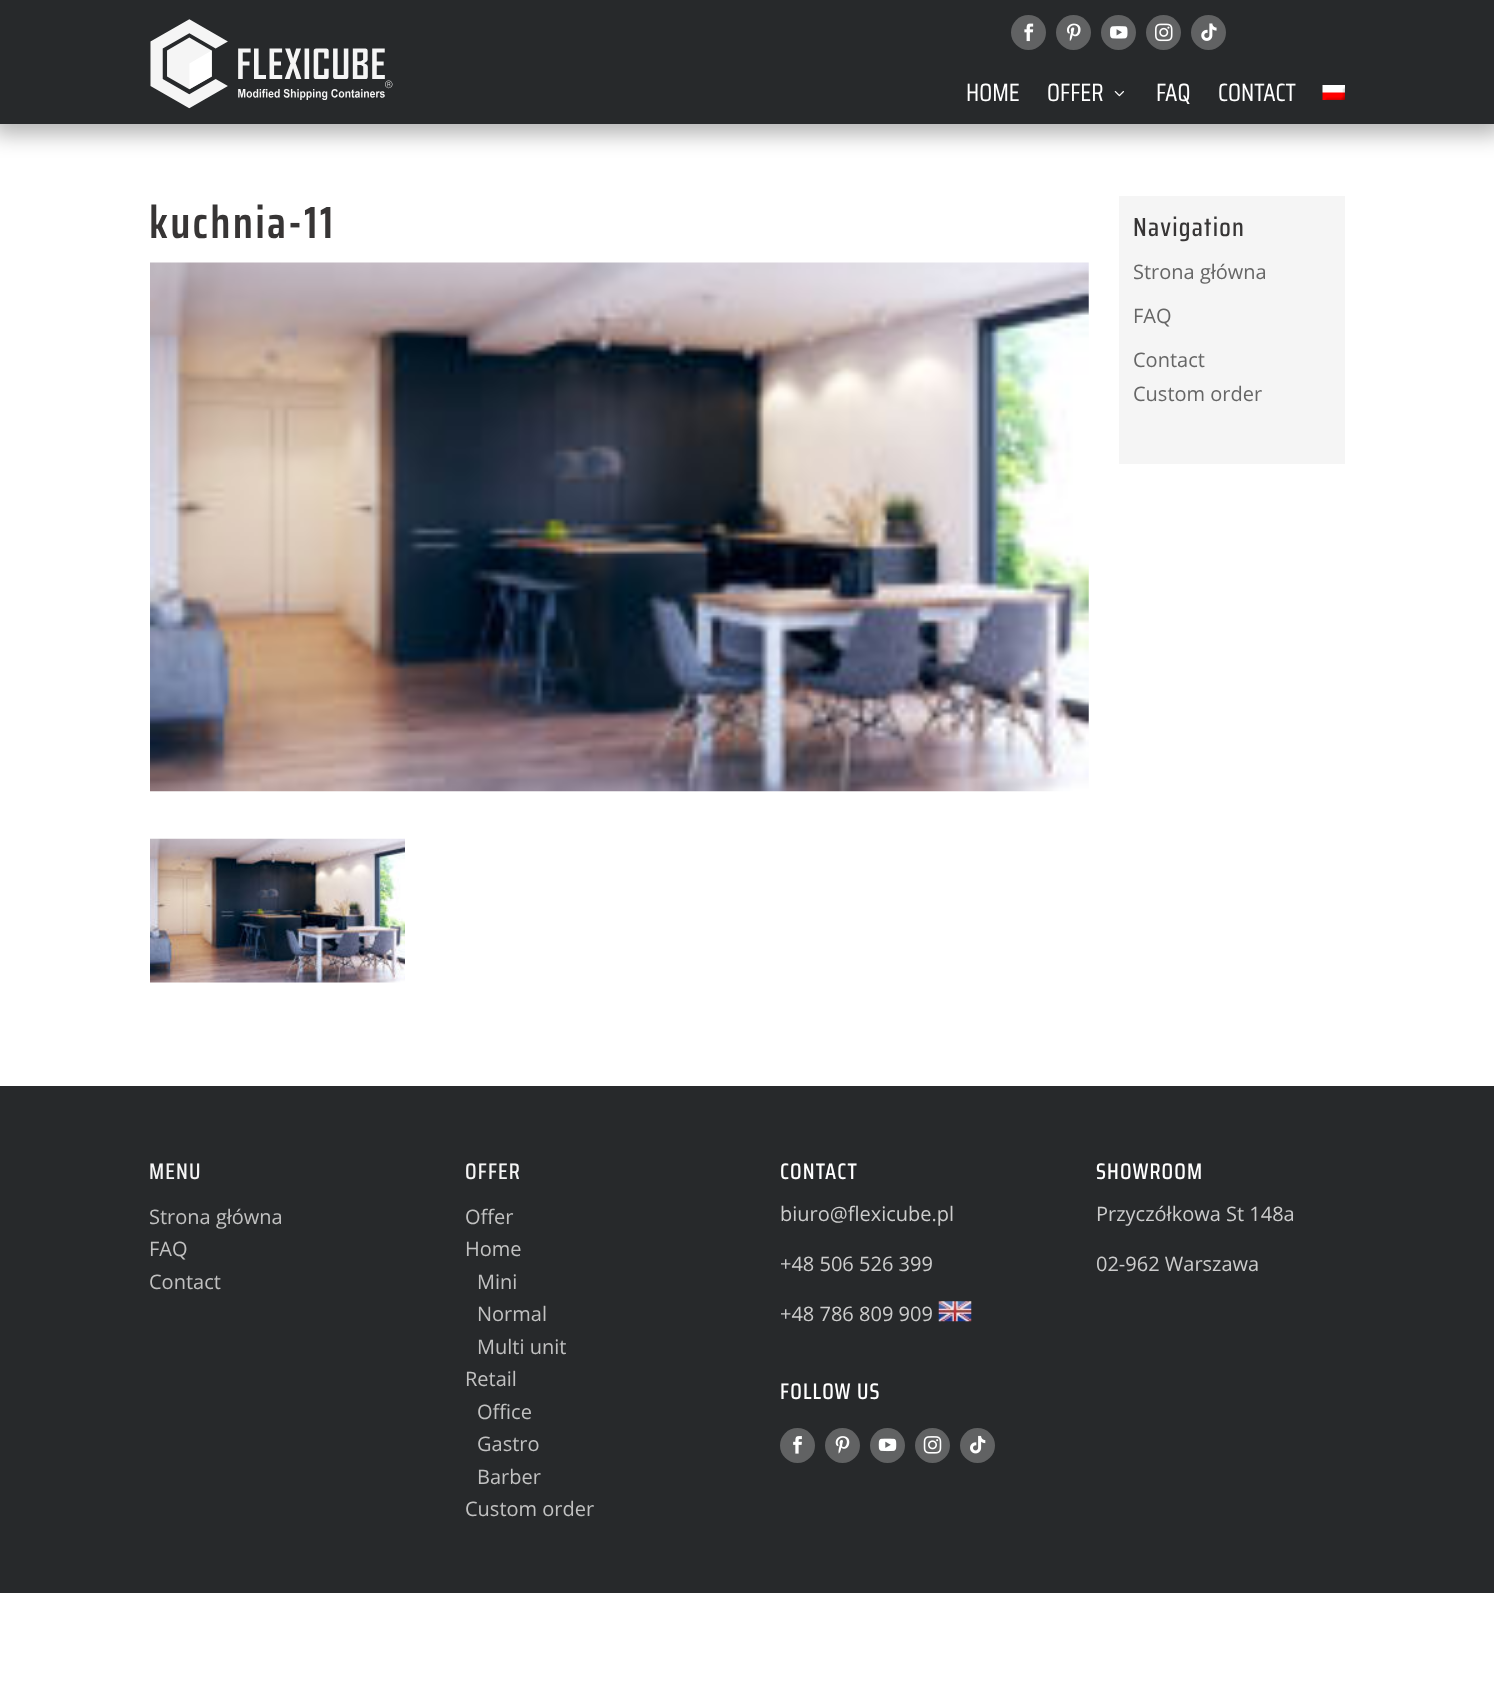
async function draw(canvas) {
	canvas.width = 1494;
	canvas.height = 1708;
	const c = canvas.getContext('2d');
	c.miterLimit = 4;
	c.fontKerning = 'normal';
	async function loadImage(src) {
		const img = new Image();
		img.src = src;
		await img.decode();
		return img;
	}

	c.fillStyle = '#fff';
	c.fillRect(0, 0, 1494, 1708);
	c.fillStyle = '#0000004d';
	c.filter = 'blur(11px)';
	c.beginPath();
	c.rect(-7, -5, 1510, 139);
	c.fill();
	c.filter = 'none';
	c.fillStyle = '#27292b';
	c.fillRect(0, 0, 1494, 124);
	c.fillStyle = '#616263';
	c.beginPath();
	c.arc(1028.5, 32.5, 17.5, 0, 2 * Math.PI);
	c.fill();
	c.drawImage(await loadImage('img1.png'), 1024, 23, 10, 19);
	c.beginPath();
	c.arc(1073.5, 32.5, 17.5, 0, 2 * Math.PI);
	c.fill();
	c.drawImage(await loadImage('img2.png'), 1067, 23, 14, 18);
	c.beginPath();
	c.arc(1118.5, 32.5, 17.5, 0, 2 * Math.PI);
	c.fill();
	c.drawImage(await loadImage('img3.png'), 1110, 26, 18, 13);
	c.beginPath();
	c.arc(1163.5, 32.5, 17.5, 0, 2 * Math.PI);
	c.fill();
	c.drawImage(await loadImage('img4.png'), 1155, 23, 18, 19);
	c.beginPath();
	c.arc(1208.5, 32.5, 17.5, 0, 2 * Math.PI);
	c.fill();
	c.drawImage(await loadImage('img5.png'), 1201, 23, 16, 18);
	c.drawImage(await loadImage('img6.png'), 150, 19, 243, 90);
	c.font = '25px Saira Condensed';
	c.fillStyle = '#fff';
	c.fillText('HOME', 966, 101);
	c.fillText('OFFER', 1047, 101);
	c.drawImage(await loadImage('img7.png'), 1114, 91, 10, 6);
	c.fillText('FAQ', 1156, 101);
	c.fillText('CONTACT', 1218, 101);
	c.drawImage(await loadImage('img8.png'), 1322, 85, 23, 15);
	c.letterSpacing = '2.25px';
	c.font = '600 45px Saira Condensed';
	c.fillStyle = '#373535';
	c.fillText('kuchnia-11', 149, 238);
	c.drawImage(await loadImage('img9.png'), 150, 262, 939, 530);
	c.drawImage(await loadImage('img10.png'), 150, 838, 255, 145);
	c.fillStyle = '#f5f5f5';
	c.fillRect(1119, 196, 226, 268);
	c.letterSpacing = '1.25px';
	c.font = '500 26.25px Saira Condensed';
	c.fillStyle = '#373535';
	c.fillText('Navigation', 1133, 236);
	c.letterSpacing = '0px';
	c.font = '20px Open Sans';
	c.fillStyle = '#666';
	for (const [text, x, y] of [
		['Strona główna', 1133, 279],
		['FAQ', 1133, 323],
		['Contact', 1133, 367],
		['Custom order', 1133, 401],
	]) {
		c.fillText(text, x, y);
	}
	c.fillStyle = '#27292b';
	c.fillRect(0, 1086, 1494, 507);
	c.letterSpacing = '1.1px';
	c.font = '500 22.5px Saira Condensed';
	c.fillStyle = '#f5f5f5';
	c.fillText('MENU', 149, 1179);
	c.letterSpacing = '0px';
	c.font = '20px Open Sans';
	c.fillStyle = '#c1c1c1';
	for (const [text, x, y] of [
		['Strona główna', 149, 1224],
		['FAQ', 149, 1256],
		['Contact', 149, 1289],
	]) {
		c.fillText(text, x, y);
	}
	c.letterSpacing = '1.1px';
	c.font = '500 22.5px Saira Condensed';
	c.fillStyle = '#f5f5f5';
	c.fillText('OFFER', 465, 1179);
	c.letterSpacing = '0px';
	c.font = '20px Open Sans';
	c.fillStyle = '#c1c1c1';
	for (const [text, x, y] of [
		['Offer', 465, 1224],
		['Home', 465, 1256],
		['Mini', 477, 1289],
		['Normal', 477, 1321],
		['Multi unit', 477, 1354],
		['Retail', 465, 1386],
		['Office', 477, 1419],
		['Gastro', 477, 1451],
		['Barber', 477, 1484],
		['Custom order', 465, 1516],
	]) {
		c.fillText(text, x, y);
	}
	c.letterSpacing = '1.1px';
	c.font = '500 22.5px Saira Condensed';
	c.fillStyle = '#fff';
	c.fillText('CONTACT', 780, 1179);
	c.letterSpacing = '0px';
	c.font = '20px Open Sans';
	c.fillStyle = '#ccc';
	for (const [text, x, y] of [
		['biuro@flexicube.pl', 780, 1221],
		['+48 506 526 399', 780, 1271],
		['+48 786 809 909', 780, 1321],
	]) {
		c.fillText(text, x, y);
	}
	c.drawImage(await loadImage('img11.png'), 938, 1301, 34, 21);
	c.letterSpacing = '1.1px';
	c.font = '500 22.5px Saira Condensed';
	c.fillStyle = '#fff';
	c.fillText('FOLLOW US', 780, 1399);
	c.fillStyle = '#616263';
	c.beginPath();
	c.arc(797.5, 1445.5, 17.5, 0, 2 * Math.PI);
	c.fill();
	c.drawImage(await loadImage('img12.png'), 793, 1436, 9, 18);
	c.beginPath();
	c.arc(842.5, 1445.5, 17.5, 0, 2 * Math.PI);
	c.fill();
	c.drawImage(await loadImage('img13.png'), 835, 1436, 15, 18);
	c.beginPath();
	c.arc(887.5, 1445.5, 17.5, 0, 2 * Math.PI);
	c.fill();
	c.drawImage(await loadImage('img14.png'), 878, 1438, 19, 14);
	c.beginPath();
	c.arc(932.5, 1445.5, 17.5, 0, 2 * Math.PI);
	c.fill();
	c.drawImage(await loadImage('img15.png'), 923, 1436, 19, 18);
	c.beginPath();
	c.arc(977.5, 1445.5, 17.5, 0, 2 * Math.PI);
	c.fill();
	c.drawImage(await loadImage('img16.png'), 970, 1435, 16, 19);
	c.fillStyle = '#fff';
	c.fillText('SHOWROOM', 1096, 1179);
	c.letterSpacing = '0px';
	c.font = '20px Open Sans';
	c.fillStyle = '#ccc';
	c.fillText('Przyczółkowa St 148a', 1096, 1221);
	c.fillText('02-962 Warszawa', 1096, 1271);
}

draw(document.querySelector('canvas'));
